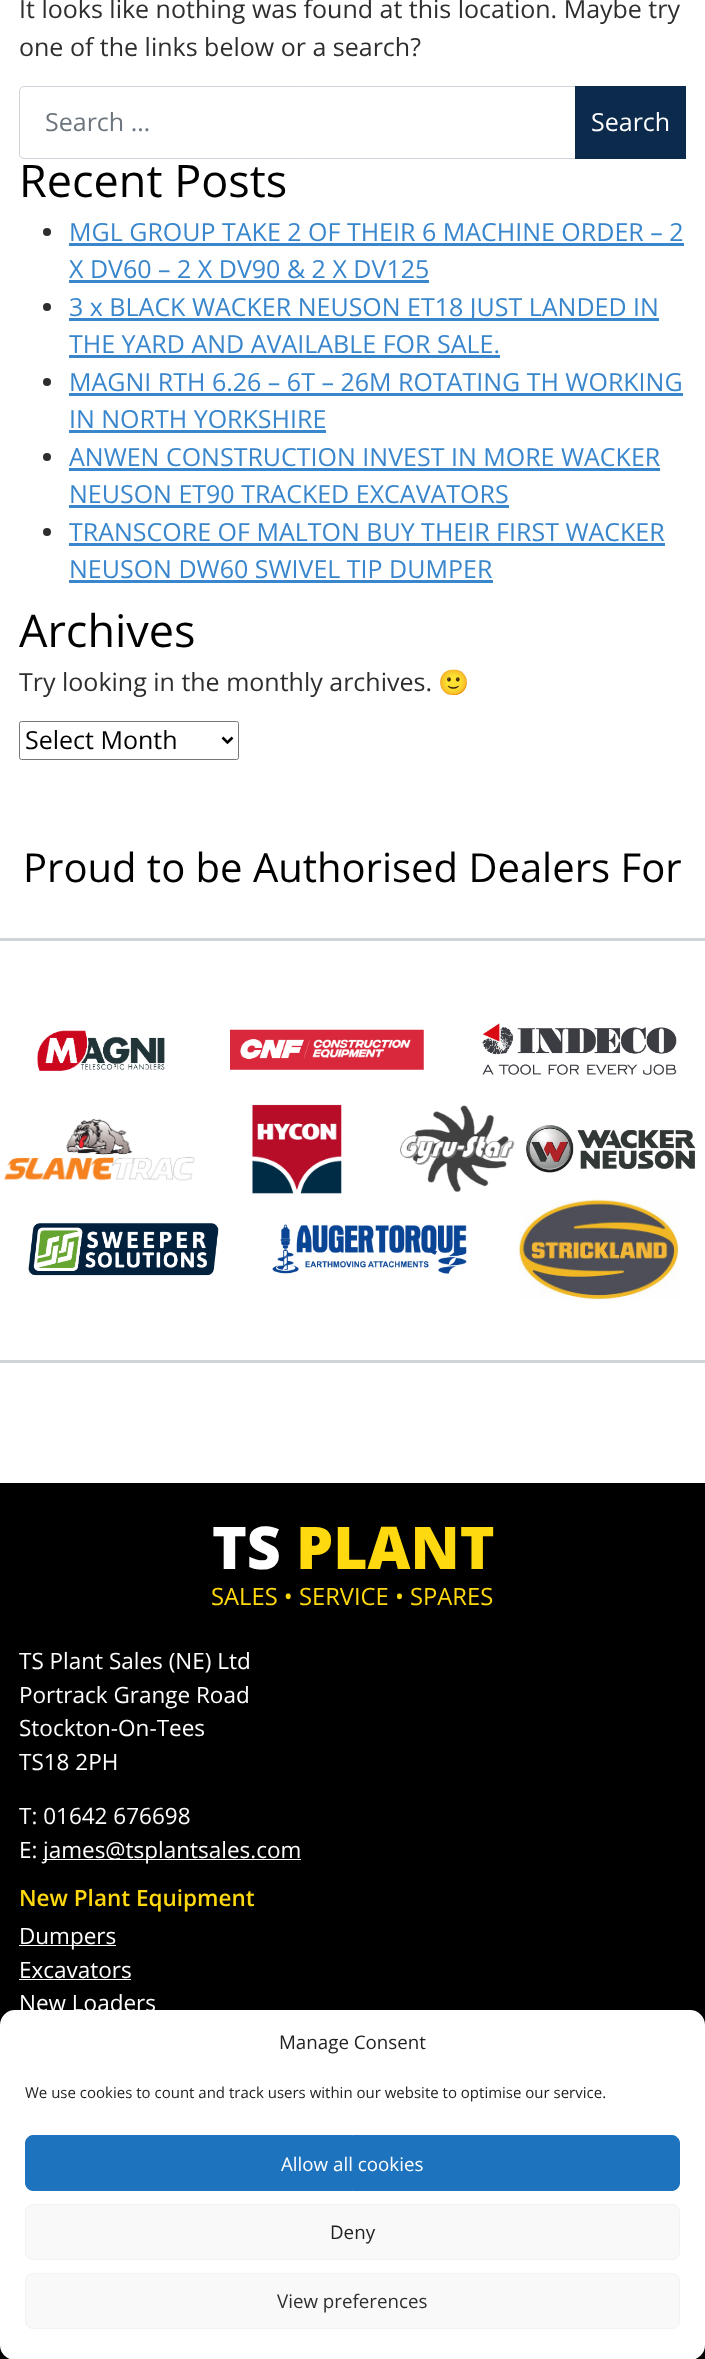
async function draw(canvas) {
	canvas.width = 705;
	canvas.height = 2359;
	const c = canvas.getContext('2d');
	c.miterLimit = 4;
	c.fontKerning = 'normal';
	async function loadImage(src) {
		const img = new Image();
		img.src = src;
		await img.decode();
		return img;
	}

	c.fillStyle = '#fff';
	c.fillRect(0, 0, 705, 2359);
	c.font = '25px Open Sans';
	c.fillStyle = '#2e2e2e';
	c.fillText('It looks like nothing was found at this location. Maybe try', 19, 18);
	c.fillText('one of the links below or a search?', 19, 56);
	c.beginPath();
	c.roundRect(19.5, 86.5, 556, 72, [4.5, 0, 0, 4.5]);
	c.strokeStyle = '#ced4da';
	c.stroke();
	c.fillStyle = '#6c757d';
	c.fillText('Search …', 45, 131);
	c.fillStyle = '#0c2a4c';
	c.fillRect(575, 86, 111, 73);
	c.fillStyle = '#fff';
	c.fillText('Search', 591, 131);
	c.font = '45px Open Sans';
	c.fillStyle = '#000';
	c.fillText('Recent Posts', 19, 197);
	c.fillStyle = '#2e2e2e';
	c.beginPath();
	c.arc(47, 232, 4, 0, 2 * Math.PI);
	c.fill();
	c.font = '25px Open Sans';
	c.fillStyle = '#3986cc';
	c.fillText('MGL GROUP TAKE 2 OF THEIR 6 MACHINE ORDER – 2', 69, 241);
	c.fillRect(69, 243, 615, 3);
	c.fillText('X DV60 – 2 X DV90 & 2 X DV125', 69, 278);
	c.fillRect(69, 280, 360, 3);
	c.fillStyle = '#2e2e2e';
	c.beginPath();
	c.arc(47, 307, 4, 0, 2 * Math.PI);
	c.fill();
	c.fillStyle = '#3986cc';
	c.fillRect(69, 318, 590, 3);
	c.fillText('3 x BLACK WACKER NEUSON ET18 JUST LANDED IN', 69, 316);
	c.fillText('THE YARD AND AVAILABLE FOR SALE.', 69, 353);
	c.fillRect(69, 355, 431, 3);
	c.fillStyle = '#2e2e2e';
	c.beginPath();
	c.arc(47, 382, 4, 0, 2 * Math.PI);
	c.fill();
	c.fillStyle = '#3986cc';
	c.fillText('MAGNI RTH 6.26 – 6T – 26M ROTATING TH WORKING', 69, 391);
	c.fillRect(69, 393, 614, 3);
	c.fillText('IN NORTH YORKSHIRE', 69, 428);
	c.fillRect(69, 430, 257, 3);
	c.fillStyle = '#2e2e2e';
	c.beginPath();
	c.arc(47, 457, 4, 0, 2 * Math.PI);
	c.fill();
	c.fillStyle = '#3986cc';
	c.fillText('ANWEN CONSTRUCTION INVEST IN MORE WACKER', 69, 466);
	c.fillRect(69, 468, 591, 3);
	c.fillText('NEUSON ET90 TRACKED EXCAVATORS', 69, 503);
	c.fillRect(69, 505, 440, 3);
	c.fillStyle = '#2e2e2e';
	c.beginPath();
	c.arc(47, 532, 4, 0, 2 * Math.PI);
	c.fill();
	c.fillStyle = '#3986cc';
	c.fillText('TRANSCORE OF MALTON BUY THEIR FIRST WACKER', 69, 541);
	c.fillRect(69, 543, 596, 3);
	c.fillText('NEUSON DW60 SWIVEL TIP DUMPER', 69, 578);
	c.fillRect(69, 580, 424, 3);
	c.font = '45px Open Sans';
	c.fillStyle = '#000';
	c.fillText('Archives', 19, 647);
	c.font = '25px Open Sans';
	c.fillStyle = '#2e2e2e';
	c.fillText('Try looking in the monthly archives.', 19, 691);
	c.font = '25px Noto Color Emoji';
	c.fillText('🙂', 438, 691);
	c.beginPath();
	c.roundRect(19.5, 721.5, 219, 38, 2);
	c.strokeStyle = '#767676';
	c.stroke();
	c.beginPath();
	c.moveTo(222.5, 737.5);
	c.lineTo(227.5, 742.5);
	c.lineTo(232.5, 737.5);
	c.strokeStyle = '#000';
	c.lineWidth = 2.5;
	c.stroke();
	c.font = '25px Open Sans';
	c.fillStyle = '#000';
	c.fillText('Select Month', 25, 749);
	c.fillStyle = '#ced4da';
	c.fillRect(0, 1360, 705, 3);
	c.fillRect(0, 938, 705, 3);
	c.font = '40px Open Sans';
	c.fillStyle = '#000';
	c.fillText('Proud to be Authorised Dealers For', 23, 882);
	c.drawImage(await loadImage('img1.png'), 37, 1030, 128, 41);
	c.drawImage(await loadImage('img2.png'), 230, 1029, 194, 41);
	c.drawImage(await loadImage('img3.png'), 482, 1023, 195, 52);
	c.drawImage(await loadImage('img4.png'), 4, 1118, 191, 63);
	c.drawImage(await loadImage('img5.png'), 252, 1104, 90, 90);
	c.drawImage(await loadImage('img6.png'), 400, 1105, 115, 87);
	c.drawImage(await loadImage('img7.png'), 526, 1125, 170, 48);
	c.drawImage(await loadImage('img8.png'), 28, 1223, 191, 53);
	c.drawImage(await loadImage('img9.png'), 272, 1224, 195, 50);
	c.drawImage(await loadImage('img10.png'), 518, 1199, 161, 101);
	c.fillRect(0, 1483, 705, 876);
	c.font = '800 59px Open Sans';
	c.fillStyle = '#fff';
	c.fillText('TS', 212, 1569);
	c.fillStyle = '#ffd90f';
	c.fillText('PLANT', 296, 1569);
	c.font = '23.75px Open Sans';
	c.fillText('SALES • SERVICE • SPARES', 211, 1605);
	c.font = '22.5px Open Sans';
	c.fillStyle = '#fff';
	for (const [text, x, y] of [
		['TS Plant Sales (NE) Ltd', 19, 1669],
		['Portrack Grange Road', 19, 1703],
		['Stockton-On-Tees', 19, 1736],
		['TS18 2PH', 19, 1770],
		['T: 01642 676698', 19, 1824],
		['E:', 19, 1858],
	]) {
		c.fillText(text, x, y);
	}
	c.fillRect(43, 1859, 258, 1);
	c.fillText('james@tsplantsales.com', 43, 1858);
	c.font = '600 22.5px Open Sans';
	c.fillStyle = '#ffd90f';
	c.fillText('New Plant Equipment', 19, 1906);
	c.fillStyle = '#fff';
	c.fillRect(19, 1945, 97, 1);
	c.font = '22.5px Open Sans';
	c.fillText('Dumpers', 19, 1944);
	c.fillText('Excavators', 19, 1978);
	c.fillRect(19, 1979, 112, 1);
	c.fillText('New Loaders', 19, 2011);
	c.fillStyle = '#808080';
	c.filter = 'blur(3px)';
	c.beginPath();
	c.roundRect(618, 2268, 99, 75, 2.5);
	c.fill();
	c.filter = 'none';
	c.fillStyle = '#fff';
	c.beginPath();
	c.roundRect(0, 2010, 705, 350, 15);
	c.fill();
	c.font = '18.75px Open Sans';
	c.fillStyle = '#222';
	c.fillText('Manage Consent', 279, 2049);
	c.font = '15px Open Sans';
	c.fillText('We use cookies to count and track users within our website to optimise our service.', 25, 2098);
	c.fillStyle = '#1e73be';
	c.beginPath();
	c.roundRect(25.5, 2135.5, 654, 55, 7.5);
	c.fill();
	c.strokeStyle = '#1e73be';
	c.lineWidth = 1;
	c.stroke();
	c.font = '18.75px Open Sans';
	c.fillStyle = '#fff';
	c.fillText('Allow all cookies', 281, 2171);
	c.fillStyle = '#f9f9f9';
	c.beginPath();
	c.roundRect(25.5, 2204.5, 654, 55, 7.5);
	c.fill();
	c.strokeStyle = '#f2f2f2';
	c.stroke();
	c.fillStyle = '#222';
	c.fillText('Deny', 330, 2239);
	c.fillStyle = '#f9f9f9';
	c.beginPath();
	c.roundRect(25.5, 2273.5, 654, 55, 7.5);
	c.fill();
	c.stroke();
	c.fillStyle = '#2e2e2e';
	c.fillText('View preferences', 277, 2308);
}

draw(document.querySelector('canvas'));
